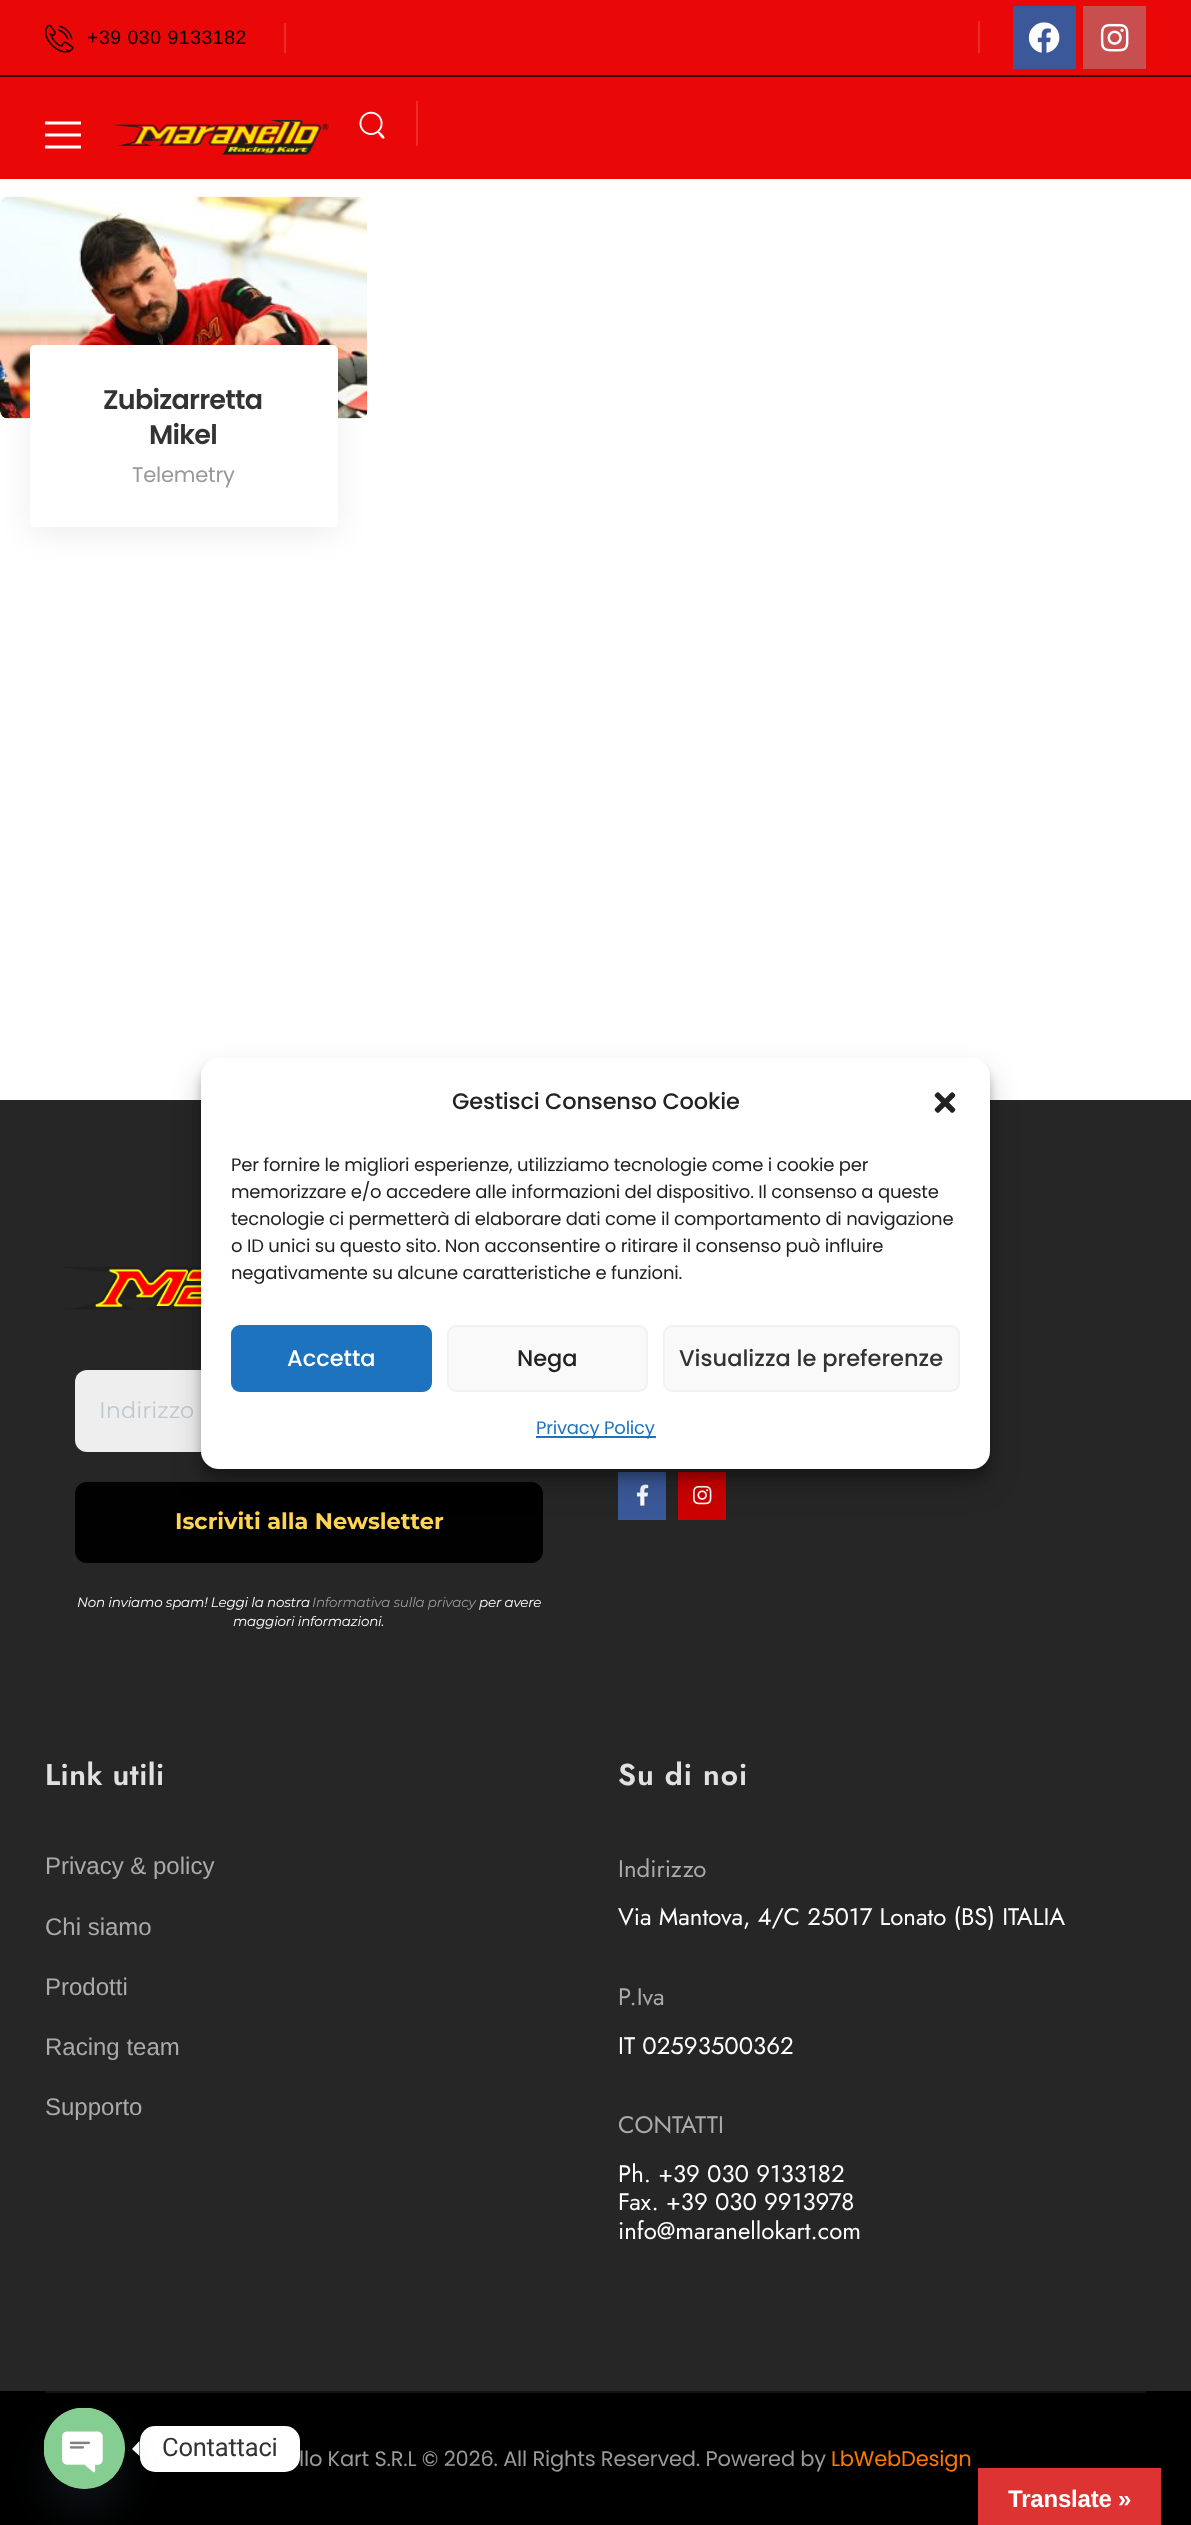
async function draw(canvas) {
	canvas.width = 1191;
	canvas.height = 2525;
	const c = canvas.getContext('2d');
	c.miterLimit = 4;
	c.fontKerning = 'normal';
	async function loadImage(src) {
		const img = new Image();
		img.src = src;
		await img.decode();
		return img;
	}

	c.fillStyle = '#fff';
	c.fillRect(0, 0, 1191, 2525);
	c.fillStyle = '#ea0707';
	c.fillRect(0, 0, 1191, 75);
	c.fillStyle = '#380202';
	c.fillRect(0, 75, 1191, 2);
	c.drawImage(await loadImage('img1.png'), 45, 24, 29, 29);
	c.letterSpacing = '0.5px';
	c.font = '19.5px Liberation Sans';
	c.fillStyle = '#000';
	c.fillText('+39 030 9133182', 87, 44);
	for (const [x, y, w, h, color] of [
		[284, 23, 2, 30, '#ed2a2a'],
		[978, 21, 2, 32, '#ed2a2a'],
		[1013, 6, 63, 63, '#3b5998'],
	]) {
		c.fillStyle = color;
		c.fillRect(x, y, w, h);
	}
	c.drawImage(await loadImage('img2.png'), 1028, 22, 32, 31);
	c.fillStyle = '#c84f4f';
	c.fillRect(1083, 6, 63, 63);
	c.drawImage(await loadImage('img3.png'), 1100, 23, 29, 29);
	c.fillStyle = '#ea0707';
	c.fillRect(0, 77, 1191, 102);
	c.fillStyle = '#fff';
	c.beginPath();
	c.moveTo(45, 121.5);
	c.lineTo(45, 124.5);
	c.lineTo(81, 124.5);
	c.lineTo(81, 121.5);
	c.closePath();
	c.moveTo(45, 133.5);
	c.lineTo(45, 136.5);
	c.lineTo(81, 136.5);
	c.lineTo(81, 133.5);
	c.closePath();
	c.moveTo(45, 145.5);
	c.lineTo(45, 148.5);
	c.lineTo(81, 148.5);
	c.lineTo(81, 145.5);
	c.closePath();
	c.fill();
	c.drawImage(await loadImage('img4.png'), 111, 120, 218, 35);
	c.drawImage(await loadImage('img5.png'), 359, 111, 26, 28);
	c.fillStyle = '#ed2a2a';
	c.fillRect(416, 101, 2, 45);
	c.drawImage(await loadImage('img6.png'), 0, 196, 368, 223);
	c.fillStyle = '#00000012';
	c.filter = 'blur(15px)';
	c.beginPath();
	c.roundRect(30, 353, 308, 181, 5);
	c.fill();
	c.filter = 'none';
	c.fillStyle = '#fff';
	c.beginPath();
	c.roundRect(30, 345, 308, 182, 5);
	c.fill();
	c.letterSpacing = '-0.75px';
	c.font = '600 27px Poppins';
	c.fillStyle = '#323334';
	c.fillText('Zubizarretta', 103, 409);
	c.fillText('Mikel', 149, 444);
	c.letterSpacing = '-0.2px';
	c.font = '21px Poppins';
	c.fillStyle = '#999';
	c.fillText('Telemetry', 132, 482);
	c.fillStyle = '#262626';
	c.fillRect(0, 1100, 1191, 1291);
	c.drawImage(await loadImage('img7.png'), 64, 1266, 137, 44);
	c.fillStyle = '#eee';
	c.beginPath();
	c.roundRect(75, 1370, 468, 82, 12);
	c.fill();
	c.letterSpacing = '0px';
	c.font = '22.5px Montserrat';
	c.fillStyle = '#bfc8d0';
	c.fillText('Indirizzo', 99, 1418);
	c.fillStyle = '#010101';
	c.beginPath();
	c.roundRect(75, 1482, 468, 81, 12);
	c.fill();
	c.font = 'bold 22.5px Montserrat';
	c.fillStyle = '#ffd456';
	c.fillText('Iscriviti alla Newsletter', 175, 1529);
	c.letterSpacing = '-0.2px';
	c.font = 'italic 13.5px Montserrat';
	c.fillStyle = '#fff';
	c.fillText('Non inviamo spam! Leggi la nostra', 77, 1607);
	c.fillStyle = '#999';
	c.fillText('Informativa sulla privacy', 312, 1607);
	c.fillStyle = '#fff';
	c.fillText('per avere', 479, 1607);
	c.fillText('maggiori informazioni.', 233, 1626);
	c.fillStyle = '#3b5999';
	c.fillRect(618, 1472, 48, 48);
	c.drawImage(await loadImage('img8.png'), 636, 1484, 13, 22);
	c.fillStyle = '#cc0001';
	c.fillRect(678, 1472, 48, 48);
	c.drawImage(await loadImage('img9.png'), 693, 1485, 19, 20);
	c.letterSpacing = '0.5px';
	c.font = '600 30px Jost';
	c.fillStyle = '#e1e1e1';
	c.fillText('Link utili', 45, 1785);
	c.letterSpacing = '0px';
	c.font = '24px Liberation Sans';
	c.fillStyle = '#aaa';
	for (const [text, x, y] of [
		['Privacy & policy', 45, 1874],
		['Chi siamo', 45, 1935],
		['Prodotti', 45, 1995],
		['Racing team', 45, 2055],
		['Supporto', 45, 2115],
	]) {
		c.fillText(text, x, y);
	}
	c.letterSpacing = '1px';
	c.font = '600 30px Jost';
	c.fillStyle = '#e1e1e1';
	c.fillText('Su di noi', 618, 1785);
	c.letterSpacing = '0px';
	c.font = '24px Jost';
	c.fillStyle = '#aaa';
	c.fillText('Indirizzo', 618, 1877);
	c.fillStyle = '#fff';
	c.fillText('Via Mantova, 4/C 25017 Lonato (BS) ITALIA', 618, 1925);
	c.fillStyle = '#aaa';
	c.fillText('P.Iva', 618, 2005);
	c.fillStyle = '#fff';
	c.fillText('IT 02593500362', 618, 2054);
	c.fillStyle = '#aaa';
	c.fillText('CONTATTI', 618, 2133);
	c.fillStyle = '#fff';
	for (const [text, x, y] of [
		['Ph. +39 030 9133182', 618, 2182],
		['Fax. +39 030 9913978', 618, 2210],
		['info@maranellokart.com', 618, 2239],
	]) {
		c.fillText(text, x, y);
	}
	c.fillStyle = '#000';
	c.fillRect(0, 2391, 1191, 134);
	c.fillStyle = '#121212';
	c.fillRect(45, 2391, 1101, 2);
	c.letterSpacing = '-0.2px';
	c.font = '21px Poppins';
	c.fillStyle = '#999';
	c.fillText('llo Kart S.R.L © 2026. All Rights Reserved. Powered by', 299, 2466);
	c.fillStyle = '#fd7800';
	c.fillText('LbWebDesign', 831, 2466);
	c.fillStyle = '#0000003b';
	c.filter = 'blur(4.5px)';
	c.beginPath();
	c.roundRect(201, 1067, 789, 411, 18);
	c.fill();
	c.filter = 'none';
	c.fillStyle = '#00000030';
	c.filter = 'blur(15px)';
	c.beginPath();
	c.roundRect(201, 1073, 789, 411, 18);
	c.fill();
	c.filter = 'none';
	c.fillStyle = '#fff';
	c.beginPath();
	c.roundRect(201, 1058, 789, 411, 18);
	c.fill();
	c.font = '500 22.5px Poppins';
	c.fillStyle = '#222';
	c.fillText('Gestisci Consenso Cookie', 452, 1109);
	c.drawImage(await loadImage('img10.png'), 934, 1092, 22, 21);
	c.font = '18px Poppins';
	for (const [text, x, y] of [
		['Per fornire le migliori esperienze, utilizziamo tecnologie come i cookie per', 231, 1171],
		['memorizzare e/o accedere alle informazioni del dispositivo. Il consenso a queste', 231, 1198],
		['tecnologie ci permetterà di elaborare dati come il comportamento di navigazione', 231, 1225],
		['o ID unici su questo sito. Non acconsentire o ritirare il consenso può influire', 231, 1252],
		['negativamente su alcune caratteristiche e funzioni.', 231, 1279],
	]) {
		c.fillText(text, x, y);
	}
	c.fillStyle = '#1e73be';
	c.beginPath();
	c.roundRect(232, 1326, 199, 65, 8);
	c.fill();
	c.strokeStyle = '#1e73be';
	c.lineWidth = 2;
	c.stroke();
	c.letterSpacing = '0px';
	c.font = '500 22.5px Poppins';
	c.fillStyle = '#fff';
	c.fillText('Accetta', 287, 1366);
	c.fillStyle = '#f9f9f9';
	c.beginPath();
	c.roundRect(448, 1326, 199, 65, 8);
	c.fill();
	c.strokeStyle = '#f2f2f2';
	c.stroke();
	c.fillStyle = '#222';
	c.fillText('Nega', 517, 1366);
	c.fillStyle = '#f9f9f9';
	c.beginPath();
	c.roundRect(664, 1326, 295, 65, 8);
	c.fill();
	c.stroke();
	c.fillStyle = '#323334';
	c.fillText('Visualizza le preferenze', 679, 1366);
	c.fillStyle = '#1e73be';
	c.fillRect(536, 1436, 120, 2);
	c.letterSpacing = '-0.2px';
	c.font = '18px Poppins';
	c.fillText('Privacy Policy', 536, 1434);
	c.fillStyle = '#fff';
	c.beginPath();
	c.roundRect(140, 2426, 160, 46, 15);
	c.fill();
	c.beginPath();
	c.moveTo(139.5, 2441);
	c.lineTo(139.5, 2456);
	c.lineTo(132, 2449);
	c.closePath();
	c.fill();
	c.fillStyle = '#49687e29';
	c.filter = 'blur(18px)';
	c.beginPath();
	c.roundRect(44, 2432, 81, 81, 40.5);
	c.fill();
	c.filter = 'none';
	c.fillStyle = '#86cd91';
	c.beginPath();
	c.arc(84.5, 2448.5, 40.5, 0, 2 * Math.PI);
	c.fill();
	c.drawImage(await loadImage('img11.png'), 44, 2408, 81, 81);
	c.font = '25.5px Roboto';
	c.fillStyle = '#323334';
	c.fillText('Contattaci', 162, 2456);
	c.fillStyle = '#d33';
	c.fillRect(978, 2468, 183, 57);
	c.font = 'bold 24px Liberation Sans';
	c.fillStyle = '#fff';
	c.fillText('Translate »', 1008, 2507);
}

draw(document.querySelector('canvas'));
